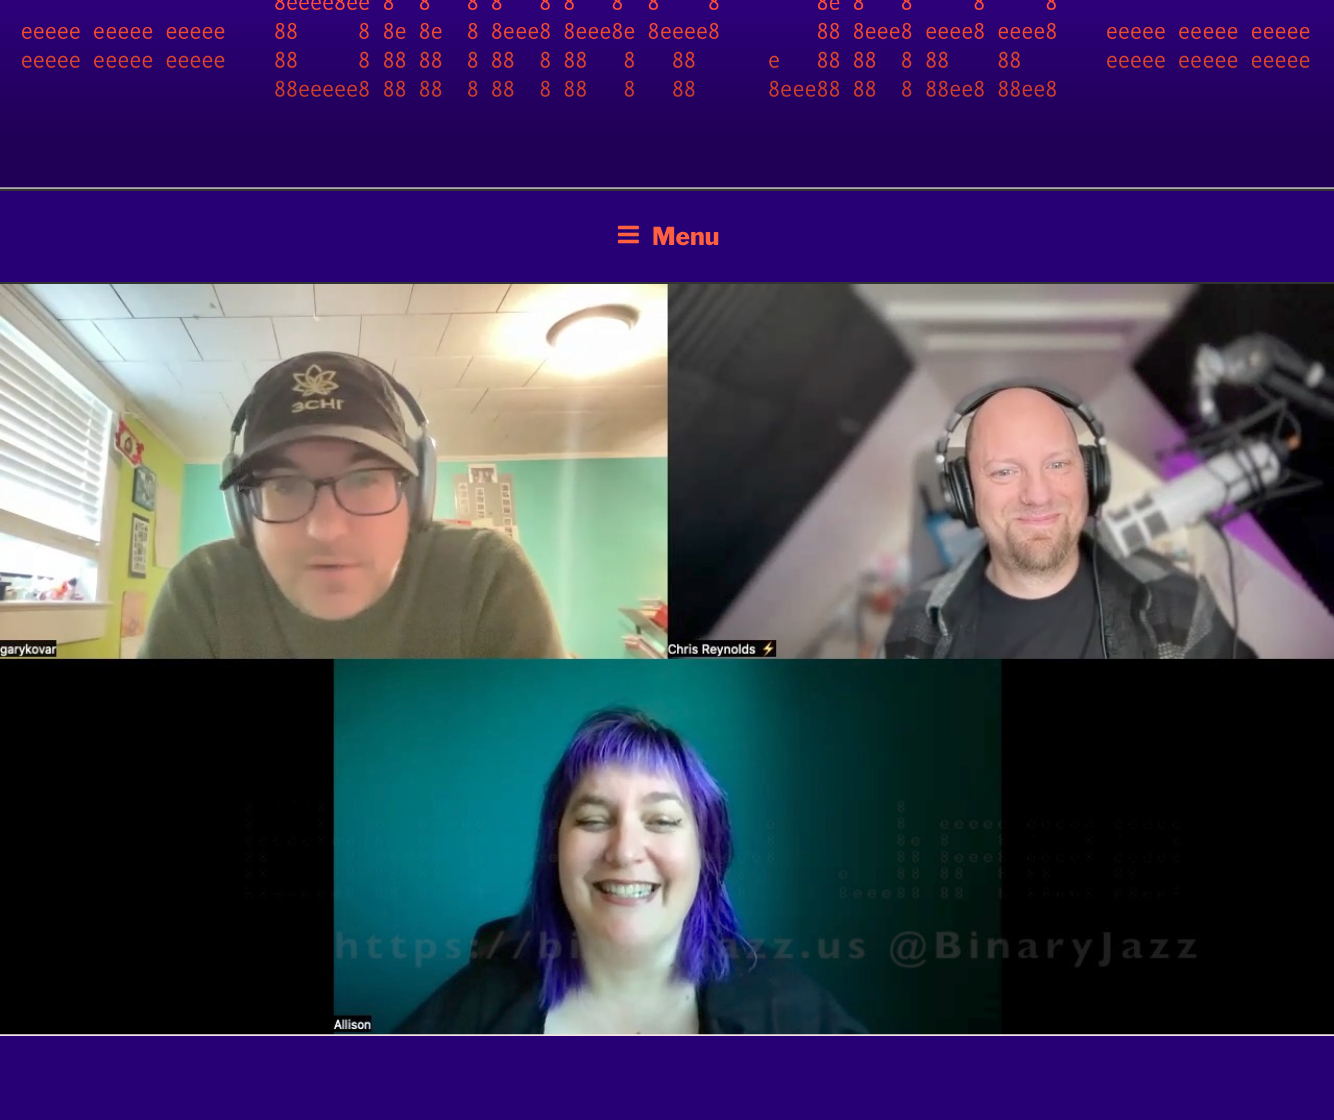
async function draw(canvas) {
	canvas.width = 1334;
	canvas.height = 1120;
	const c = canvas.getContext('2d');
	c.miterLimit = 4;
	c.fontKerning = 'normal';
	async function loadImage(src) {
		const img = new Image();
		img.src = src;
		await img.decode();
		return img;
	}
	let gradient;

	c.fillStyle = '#270075';
	c.fillRect(0, 0, 1334, 1120);
	c.fillStyle = '#fcf7f7';
	c.fillRect(0, 187, 1334, 2);
	c.drawImage(await loadImage('img1.png'), 0, 0, 1334, 188);
	gradient = c.createLinearGradient(668, 0, 668, 189);
	gradient.addColorStop(0, '#00000000');
	gradient.addColorStop(0.75, '#0000004d');
	gradient.addColorStop(1, '#0000004d');
	c.fillStyle = gradient;
	c.fillRect(0, 10, 1334, 179);
	c.fillStyle = '#333';
	c.fillRect(0, 189, 1334, 2);
	c.fillRect(0, 282, 1334, 2);
	c.drawImage(await loadImage('img2.png'), 617, 225, 22, 19);
	c.font = '100 24.5px Libre Franklin';
	c.fillStyle = '#ff603f';
	c.fillText('Menu', 652, 245);
	c.fillStyle = '#f6e4e4';
	c.fillRect(0, 1034, 1334, 2);
	c.drawImage(await loadImage('img3.png'), 0, 284, 1334, 751);
}

draw(document.querySelector('canvas'));
